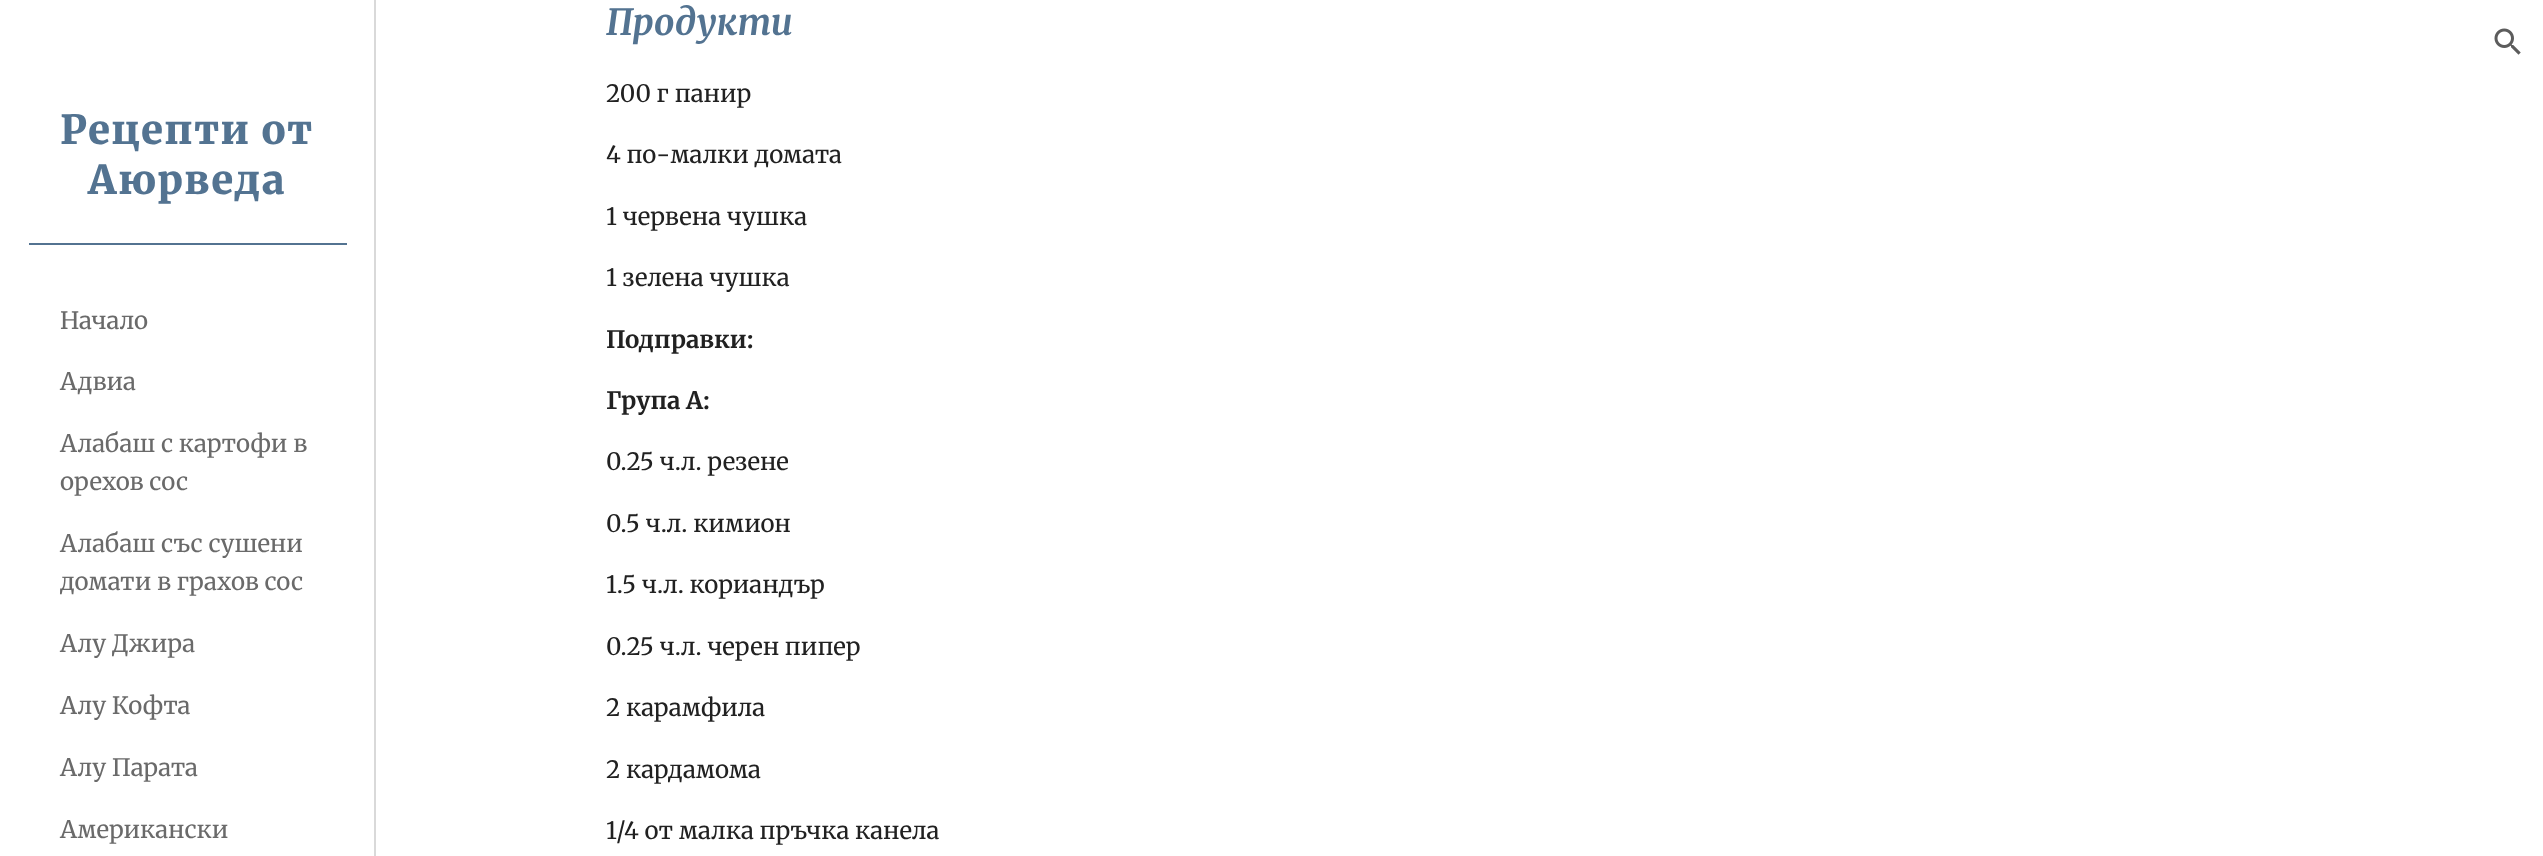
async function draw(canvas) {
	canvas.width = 2543;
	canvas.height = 856;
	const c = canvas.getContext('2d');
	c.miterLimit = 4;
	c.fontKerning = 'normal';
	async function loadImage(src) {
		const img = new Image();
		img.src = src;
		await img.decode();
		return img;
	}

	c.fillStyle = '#fff';
	c.fillRect(0, 0, 2543, 856);
	c.drawImage(await loadImage('img1.png'), 2494, 28, 27, 27);
	c.fillStyle = '#d9d9d9';
	c.fillRect(374, 0, 2, 856);
	c.letterSpacing = '1.5px';
	c.font = '900 40px Merriweather';
	c.fillStyle = '#537391';
	c.fillText('Рецепти от', 60, 144);
	c.fillText('Аюрведа', 88, 194);
	c.fillRect(29, 243, 318, 2);
	c.letterSpacing = '0px';
	c.font = '24px Merriweather';
	c.fillStyle = '#6a6a6a';
	for (const [text, x, y] of [
		['Начало', 60, 329],
		['Адвиа', 60, 390],
		['Алабаш с картофи в', 60, 452],
		['орехов сос', 60, 490],
		['Алабаш със сушени', 60, 552],
		['домати в грахов сос', 60, 590],
		['Алу Джира', 60, 652],
		['Алу Кофта', 60, 714],
		['Алу Парата', 60, 776],
		['Американски', 60, 838],
	]) {
		c.fillText(text, x, y);
	}
	c.font = 'italic bold 36px Merriweather';
	c.fillStyle = '#537391';
	c.fillText('Продукти', 606, 35);
	c.font = '24px Merriweather';
	c.fillStyle = '#212121';
	for (const [text, x, y] of [
		['200 г панир', 606, 102],
		['4 по-малки домата', 606, 163],
		['1 червена чушка', 606, 225],
		['1 зелена чушка', 606, 286],
	]) {
		c.fillText(text, x, y);
	}
	c.font = 'bold 24px Merriweather';
	c.fillText('Подправки:', 606, 348);
	c.fillText('Група А:', 606, 409);
	c.font = '24px Merriweather';
	for (const [text, x, y] of [
		['0.25 ч.л. резене', 606, 470],
		['0.5 ч.л. кимион', 606, 532],
		['1.5 ч.л. кориандър', 606, 593],
		['0.25 ч.л. черен пипер', 606, 655],
		['2 карамфила', 606, 716],
		['2 кардамома', 606, 778],
		['1/4 от малка пръчка канела', 606, 839],
	]) {
		c.fillText(text, x, y);
	}
}

draw(document.querySelector('canvas'));
